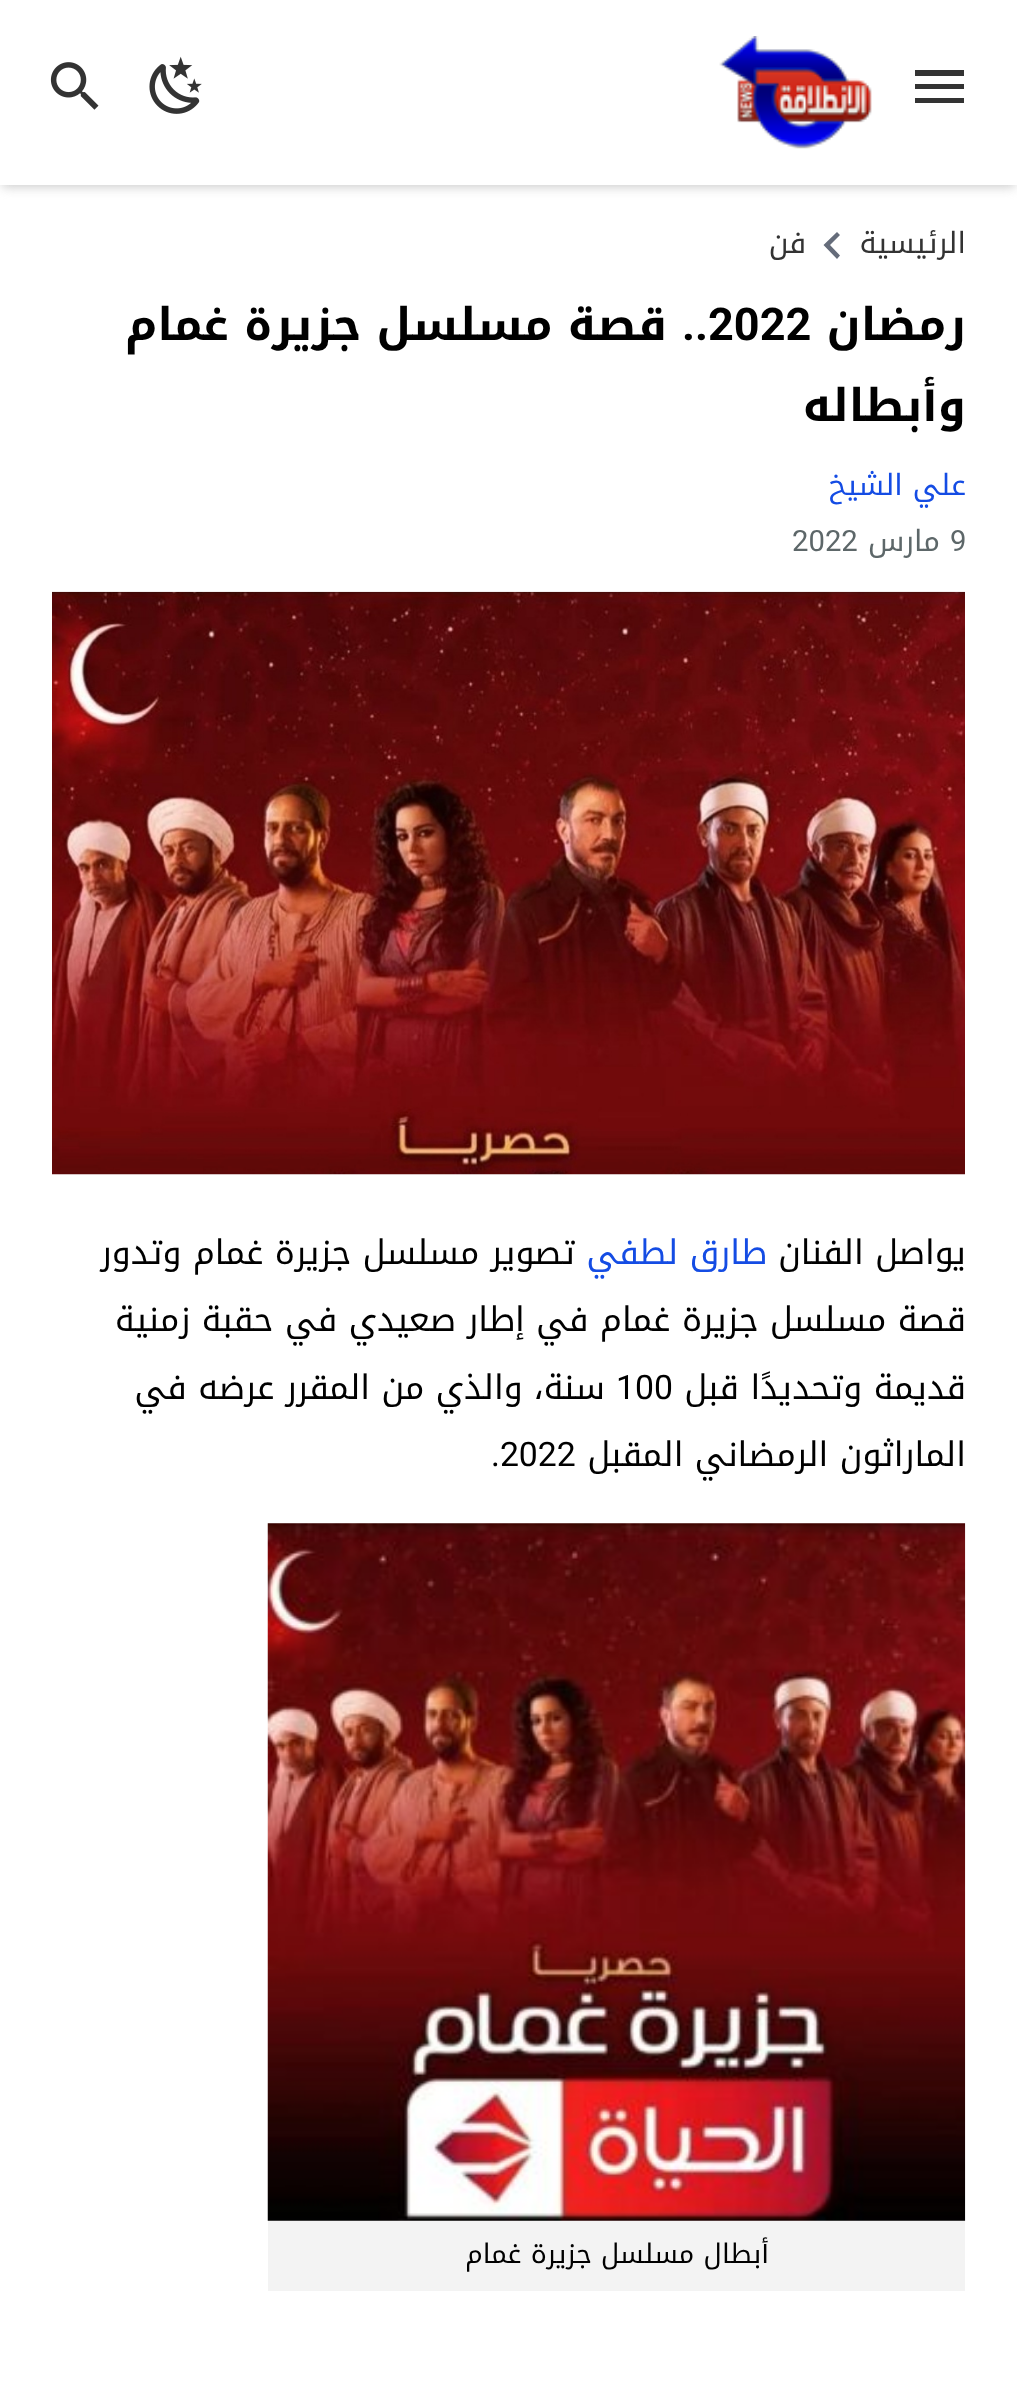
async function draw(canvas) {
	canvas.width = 1017;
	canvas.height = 2393;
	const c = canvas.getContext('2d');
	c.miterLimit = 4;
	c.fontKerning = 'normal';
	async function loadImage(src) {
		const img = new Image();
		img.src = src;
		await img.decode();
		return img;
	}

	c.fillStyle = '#fff';
	c.fillRect(0, 0, 1017, 2393);
	c.fillStyle = '#ccc';
	c.filter = 'blur(5.5px)';
	c.beginPath();
	c.rect(2, 7, 1013, 180);
	c.fill();
	c.filter = 'none';
	c.fillStyle = '#fff';
	c.fillRect(0, 0, 1017, 185);
	c.fillStyle = '#333';
	c.beginPath();
	c.moveTo(915, 70);
	c.lineTo(964, 70);
	c.lineTo(964, 76);
	c.lineTo(915, 76);
	c.lineTo(915, 70);
	c.moveTo(915, 84);
	c.lineTo(964, 84);
	c.lineTo(964, 89);
	c.lineTo(915, 89);
	c.lineTo(915, 84);
	c.moveTo(915, 98);
	c.lineTo(964, 98);
	c.lineTo(964, 103);
	c.lineTo(915, 103);
	c.closePath();
	c.fill();
	c.drawImage(await loadImage('img1.png'), 719, 36, 153, 113);
	c.drawImage(await loadImage('img2.png'), 149, 56, 53, 58);
	c.drawImage(await loadImage('img3.png'), 50, 62, 49, 48);
	c.direction = 'rtl';
	c.font = '29.25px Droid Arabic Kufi';
	c.fillText('الرئيسية', 966, 253);
	c.fillStyle = '#656c7a';
	c.beginPath();
	c.moveTo(840, 255.5);
	c.lineTo(830, 245);
	c.lineTo(840, 235);
	c.lineTo(837, 232);
	c.lineTo(823.5, 245);
	c.lineTo(837, 259);
	c.closePath();
	c.fill();
	c.fillStyle = '#333';
	c.fillText('فن', 806, 253);
	c.font = 'bold 45px Droid Arabic Kufi';
	c.fillStyle = '#000';
	c.fillText('رمضان', 966, 340);
	c.direction = 'ltr';
	c.font = 'bold 45px Roboto';
	c.fillText('2022', 708, 340);
	c.direction = 'rtl';
	c.fillText('..', 708, 340);
	c.font = 'bold 45px Droid Arabic Kufi';
	c.fillText('قصة مسلسل جزيرة غمام', 667, 340);
	c.fillText('وأبطاله', 966, 421);
	c.font = '29.25px Droid Arabic Kufi';
	c.fillStyle = '#144ce4';
	c.fillText('علي الشيخ', 966, 495);
	c.direction = 'ltr';
	c.font = '29.25px Roboto';
	c.fillStyle = '#5d6769';
	c.fillText('9', 950, 551);
	c.direction = 'rtl';
	c.font = '29.25px Droid Arabic Kufi';
	c.fillText('مارس', 940, 551);
	c.direction = 'ltr';
	c.font = '29.25px Roboto';
	c.fillText('2022', 792, 551);
	c.drawImage(await loadImage('img4.png'), 52, 591, 913, 584);
	c.direction = 'rtl';
	c.font = '33.75px Droid Arabic Kufi';
	c.fillStyle = '#000';
	c.fillText('يواصل الفنان', 966, 1264);
	c.fillStyle = '#144ce4';
	c.fillText('طارق لطفي', 767, 1264);
	c.fillStyle = '#000';
	for (const [text, x, y] of [
		['تصوير مسلسل جزيرة غمام وتدور', 575, 1264],
		['قصة مسلسل جزيرة غمام في إطار صعيدي في حقبة زمنية', 966, 1331],
		['قديمة وتحديدًا قبل', 966, 1399],
	]) {
		c.fillText(text, x, y);
	}
	c.direction = 'ltr';
	c.font = '33.75px Roboto';
	c.fillText('100', 616, 1399);
	c.direction = 'rtl';
	c.font = '33.75px Droid Arabic Kufi';
	c.fillText('سنة، والذي من المقرر عرضه في', 605, 1399);
	c.fillText('الماراثون الرمضاني المقبل', 966, 1466);
	c.direction = 'ltr';
	c.font = '33.75px Roboto';
	c.fillText('.2022', 491, 1466);
	c.fillStyle = '#f3f3f3';
	c.fillRect(268, 1523, 697, 768);
	c.drawImage(await loadImage('img5.png'), 267, 1523, 699, 698);
	c.direction = 'rtl';
	c.font = '27px Droid Arabic Kufi';
	c.fillStyle = '#000';
	c.fillText('أبطال مسلسل جزيرة غمام', 769, 2263);
}

draw(document.querySelector('canvas'));
